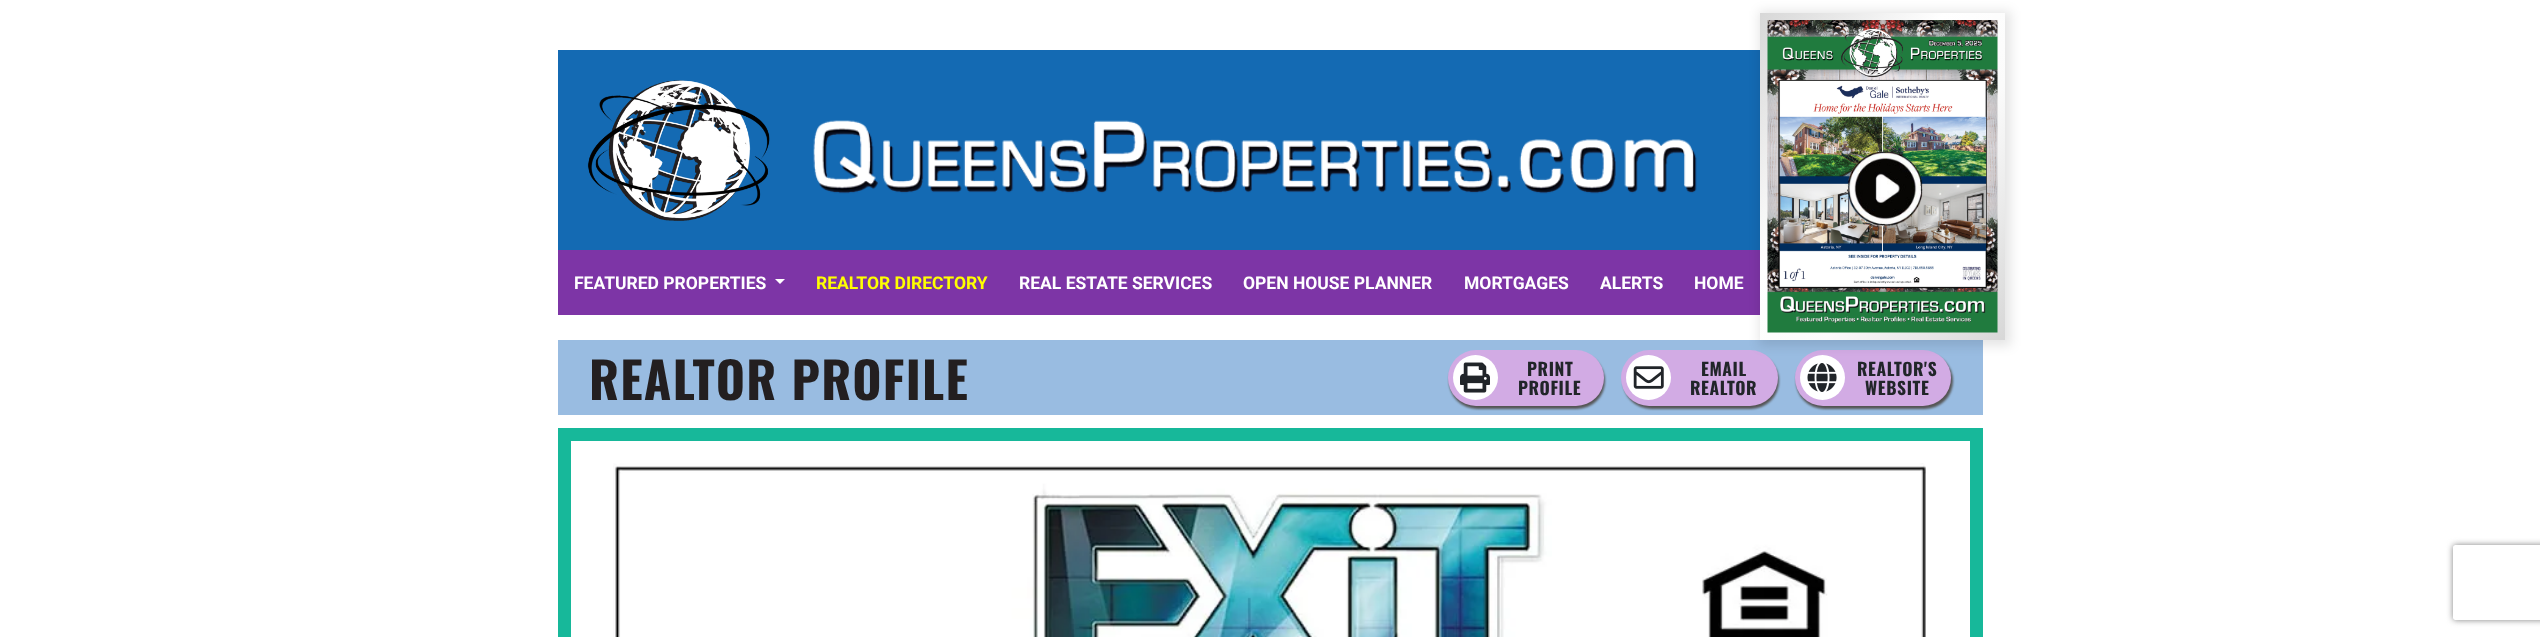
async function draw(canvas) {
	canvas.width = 2540;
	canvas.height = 637;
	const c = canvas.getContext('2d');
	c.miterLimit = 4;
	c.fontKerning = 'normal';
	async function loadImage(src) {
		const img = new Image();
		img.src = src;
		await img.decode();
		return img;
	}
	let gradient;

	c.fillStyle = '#fff';
	c.fillRect(0, 0, 2540, 637);
	c.fillStyle = '#146ab3';
	c.fillRect(558, 50, 1202, 200);
	c.drawImage(await loadImage('img1.png'), 587, 80, 183, 141);
	c.drawImage(await loadImage('img2.png'), 813, 120, 884, 74);
	c.fillStyle = '#7d35a6';
	c.fillRect(558, 250, 1202, 65);
	c.fillStyle = '#99bce1';
	c.fillRect(558, 340, 1425, 75);
	c.fillStyle = '#555';
	c.filter = 'blur(1px)';
	c.beginPath();
	c.roundRect(1623, 353, 156, 56, 28);
	c.fill();
	c.filter = 'none';
	c.fillStyle = '#d2abe4';
	c.beginPath();
	c.roundRect(1621, 350, 157, 56, 28);
	c.fill();
	c.fillStyle = '#555';
	c.filter = 'blur(1px)';
	c.beginPath();
	c.roundRect(1796, 353, 157, 56, 28);
	c.fill();
	c.filter = 'none';
	c.fillStyle = '#d2abe4';
	c.beginPath();
	c.roundRect(1795, 350, 156, 56, 28);
	c.fill();
	c.fillStyle = '#fff';
	c.beginPath();
	c.arc(1822.5, 377.5, 22.5, 0, 2 * Math.PI);
	c.fill();
	c.drawImage(await loadImage('img7.png'), 1807, 363, 30, 29);
	c.fillStyle = '#0000001a';
	c.filter = 'blur(5.5px)';
	c.beginPath();
	c.rect(1759, 11, 252, 335);
	c.fill();
	c.filter = 'none';
	gradient = c.createLinearGradient(2042, 288, 1723, 65);
	gradient.addColorStop(0, '#d7d7d7');
	gradient.addColorStop(0.38, '#fbfbfb');
	gradient.addColorStop(0.61, '#fff');
	gradient.addColorStop(1, '#d7d7d7');
	c.fillStyle = gradient;
	c.fillRect(1760, 13, 245, 327);
	c.drawImage(await loadImage('img3.png'), 1767, 20, 231, 313);
	c.drawImage(await loadImage('img4.png'), 1847, 151, 76, 76);
	c.font = 'bold 17.5px Roboto';
	c.fillStyle = '#fff';
	c.fillText('FEATURED PROPERTIES', 574, 289);
	c.beginPath();
	c.moveTo(775, 279);
	c.lineTo(785, 279);
	c.lineTo(780, 284);
	c.closePath();
	c.fill();
	c.fillStyle = '#ff0';
	c.fillText('REALTOR DIRECTORY', 816, 289);
	c.fillStyle = '#fff';
	for (const [text, x, y] of [
		['REAL ESTATE SERVICES', 1019, 289],
		['OPEN HOUSE PLANNER', 1243, 289],
		['MORTGAGES', 1464, 289],
		['ALERTS', 1600, 289],
		['HOME', 1694, 289],
	]) {
		c.fillText(text, x, y);
	}
	c.letterSpacing = '1.25px';
	c.font = 'bold 50px Oswald';
	c.fillStyle = '#231f20';
	c.fillText('REALTOR PROFILE', 589, 400);
	c.fillStyle = '#555';
	c.filter = 'blur(1px)';
	c.beginPath();
	c.roundRect(1449, 353, 156, 56, 28);
	c.fill();
	c.filter = 'none';
	c.fillStyle = '#d2abe4';
	c.beginPath();
	c.roundRect(1448, 350, 156, 56, 28);
	c.fill();
	c.fillStyle = '#fff';
	c.beginPath();
	c.arc(1475.5, 377.5, 22.5, 0, 2 * Math.PI);
	c.fill();
	c.drawImage(await loadImage('img5.png'), 1460, 362, 30, 31);
	c.letterSpacing = '0.6px';
	c.font = 'bold 17.5px Oswald';
	c.fillStyle = '#212529';
	c.fillText('PRINT', 1527, 376);
	c.fillText('PROFILE', 1518, 395);
	c.fillStyle = '#fff';
	c.beginPath();
	c.arc(1648.5, 377.5, 22.5, 0, 2 * Math.PI);
	c.fill();
	c.drawImage(await loadImage('img6.png'), 1633, 366, 31, 23);
	c.fillStyle = '#212529';
	for (const [text, x, y] of [
		['EMAIL', 1701, 376],
		['REALTOR', 1690, 395],
		['REALTOR\'S', 1857, 376],
		['WEBSITE', 1865, 395],
	]) {
		c.fillText(text, x, y);
	}
	c.strokeStyle = '#17b89a';
	c.lineWidth = 13;
	c.strokeRect(564.5, 434.5, 1412, 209);
	c.drawImage(await loadImage('img8.png'), 613, 463, 1313, 174);
	c.save();
	c.beginPath();
	c.moveTo(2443, 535);
	c.lineTo(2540, 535);
	c.lineTo(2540, 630);
	c.lineTo(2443, 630);
	c.closePath();
	c.moveTo(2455.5, 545);
	c.lineTo(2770.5, 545);
	c.bezierCurveTo(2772, 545, 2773, 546, 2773, 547.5);
	c.lineTo(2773, 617.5);
	c.bezierCurveTo(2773, 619, 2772, 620, 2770.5, 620);
	c.lineTo(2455.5, 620);
	c.bezierCurveTo(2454, 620, 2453, 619, 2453, 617.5);
	c.lineTo(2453, 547.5);
	c.bezierCurveTo(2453, 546, 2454, 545, 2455.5, 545);
	c.closePath();
	c.clip('evenodd');
	c.fillStyle = '#808080';
	c.filter = 'blur(3px)';
	c.beginPath();
	c.roundRect(2453, 545, 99, 75, 2.5);
	c.fill();
	c.filter = 'none';
	c.restore();
}

draw(document.querySelector('canvas'));
